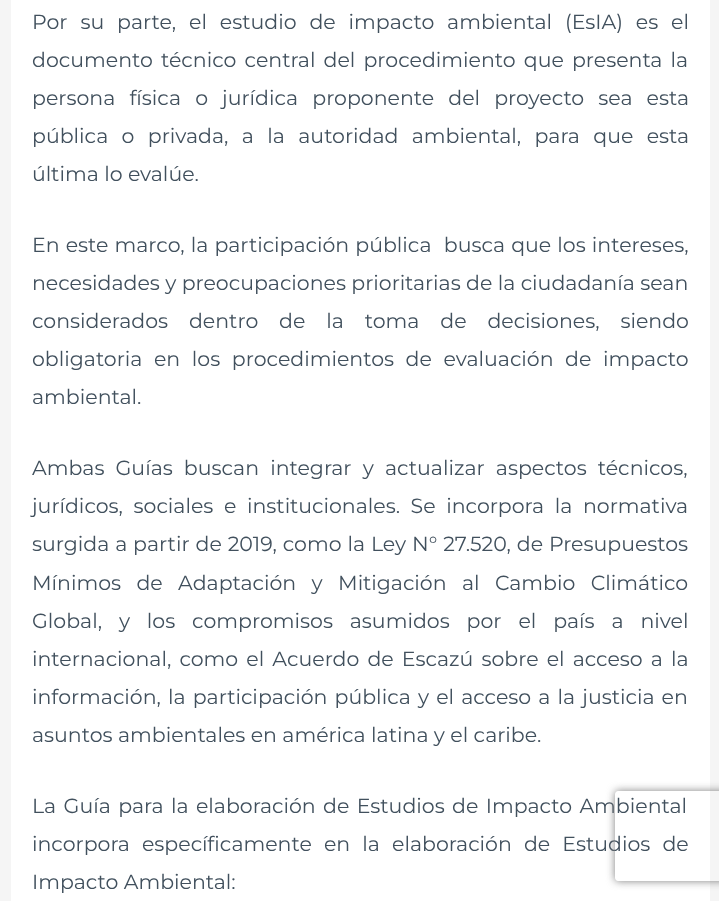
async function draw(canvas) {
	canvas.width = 719;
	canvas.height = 901;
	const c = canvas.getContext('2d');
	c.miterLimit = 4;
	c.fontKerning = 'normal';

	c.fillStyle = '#f5f5f5';
	c.fillRect(0, 0, 719, 901);
	c.fillStyle = '#fff';
	c.fillRect(11, 0, 699, 901);
	c.wordSpacing = '7.5px';
	c.font = '20.5px Montserrat';
	c.fillStyle = '#41505d';
	c.fillText('Por su parte, el estudio de impacto ambiental (EsIA) es el', 32, 29);
	c.wordSpacing = '2.75px';
	c.fillText('documento técnico central del procedimiento que presenta la', 32, 67);
	c.wordSpacing = '8.75px';
	c.fillText('persona física o jurídica proponente del proyecto sea esta', 32, 105);
	c.wordSpacing = '8px';
	c.fillText('pública o privada, a la autoridad ambiental, para que esta', 32, 143);
	c.wordSpacing = '0px';
	c.fillText('última lo evalúe.', 32, 181);
	c.wordSpacing = '0.75px';
	c.fillText('En este marco, la participación pública  busca que los intereses,', 32, 252);
	c.wordSpacing = '0px';
	c.fillText('necesidades y preocupaciones prioritarias de la ciudadanía sean', 32, 290);
	c.wordSpacing = '15.5px';
	c.fillText('considerados dentro de la toma de decisiones, siendo', 32, 328);
	c.wordSpacing = '6.25px';
	c.fillText('obligatoria en los procedimientos de evaluación de impacto', 32, 366);
	c.wordSpacing = '0px';
	c.fillText('ambiental.', 32, 404);
	c.wordSpacing = '5.75px';
	c.fillText('Ambas Guías buscan integrar y actualizar aspectos técnicos,', 32, 475);
	c.wordSpacing = '5.25px';
	c.fillText('jurídicos, sociales e institucionales. Se incorpora la normativa', 32, 513);
	c.wordSpacing = '0.5px';
	c.fillText('surgida a partir de 2019, como la Ley N° 27.520, de Presupuestos', 32, 551);
	c.wordSpacing = '10px';
	c.fillText('Mínimos de Adaptación y Mitigación al Cambio Climático', 32, 590);
	c.wordSpacing = '11.5px';
	c.fillText('Global, y los compromisos asumidos por el país a nivel', 32, 628);
	c.wordSpacing = '2.75px';
	c.fillText('internacional, como el Acuerdo de Escazú sobre el acceso a la', 32, 666);
	c.wordSpacing = '1.75px';
	c.fillText('información, la participación pública y el acceso a la justicia en', 32, 704);
	c.wordSpacing = '0px';
	c.fillText('asuntos ambientales en américa latina y el caribe.', 32, 742);
	c.wordSpacing = '2px';
	c.fillText('La Guía para la elaboración de Estudios de Impacto Ambiental', 32, 813);
	c.wordSpacing = '6.75px';
	c.fillText('incorpora específicamente en la elaboración de Estudios de', 32, 851);
	c.wordSpacing = '0px';
	c.fillText('Impacto Ambiental:', 32, 889);
	c.save();
	c.beginPath();
	c.moveTo(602, 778);
	c.lineTo(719, 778);
	c.lineTo(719, 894);
	c.lineTo(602, 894);
	c.closePath();
	c.moveTo(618, 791);
	c.lineTo(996, 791);
	c.bezierCurveTo(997.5, 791, 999, 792.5, 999, 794);
	c.lineTo(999, 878);
	c.bezierCurveTo(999, 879.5, 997.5, 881, 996, 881);
	c.lineTo(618, 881);
	c.bezierCurveTo(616.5, 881, 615, 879.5, 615, 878);
	c.lineTo(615, 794);
	c.bezierCurveTo(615, 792.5, 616.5, 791, 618, 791);
	c.closePath();
	c.clip('evenodd');
	c.fillStyle = '#808080';
	c.filter = 'blur(4px)';
	c.beginPath();
	c.roundRect(615, 791, 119, 90, 3);
	c.fill();
	c.filter = 'none';
	c.restore();
}

draw(document.querySelector('canvas'));
